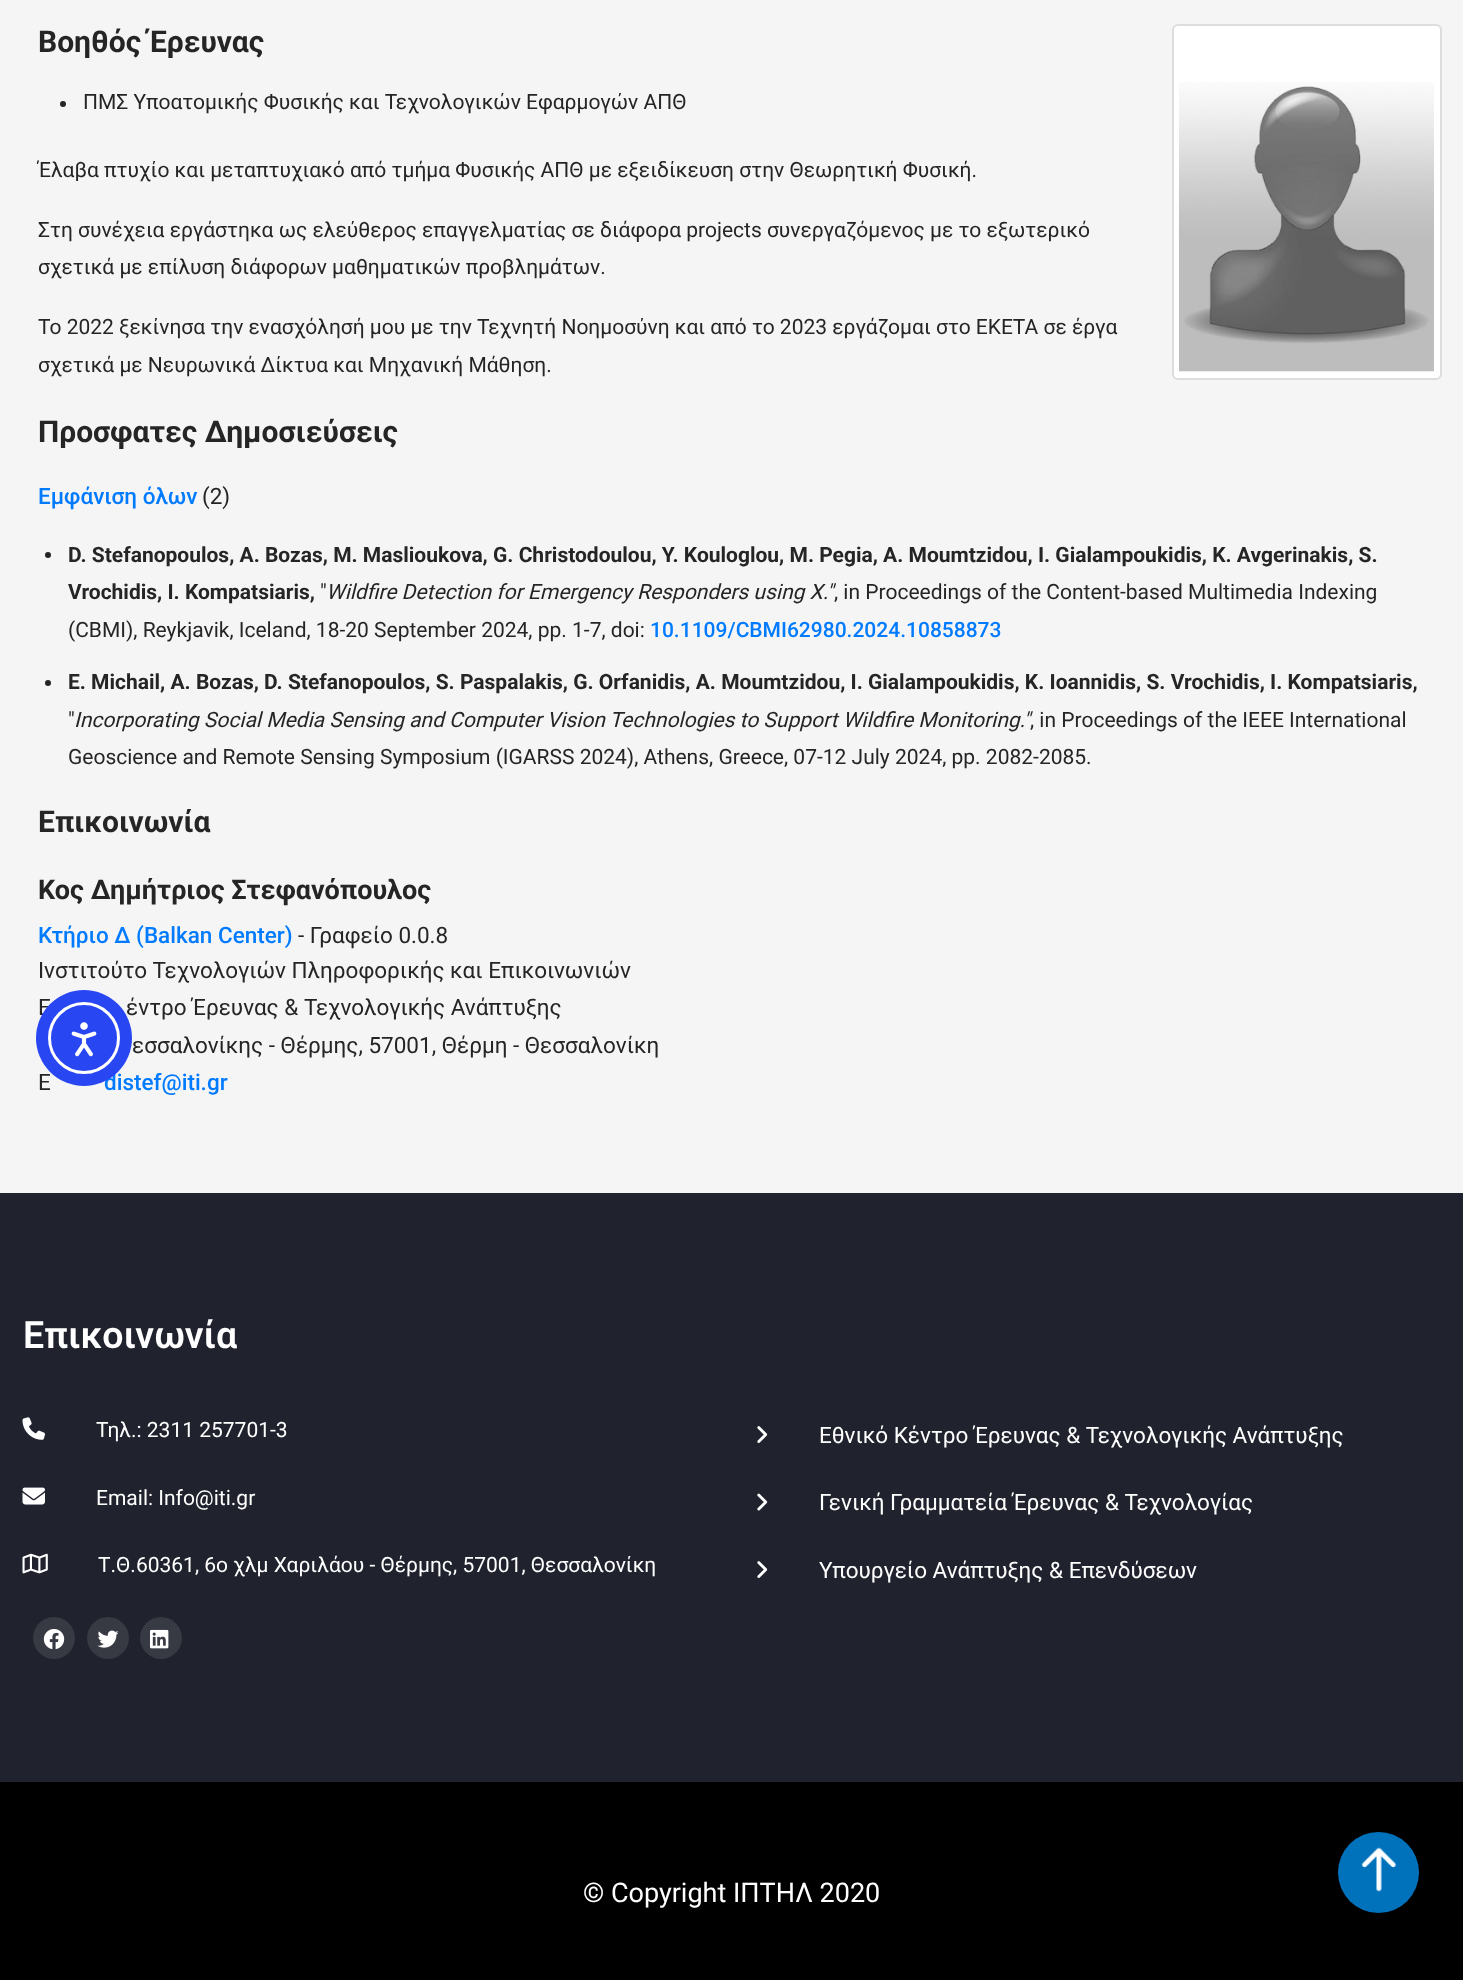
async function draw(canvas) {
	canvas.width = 1463;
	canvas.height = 1980;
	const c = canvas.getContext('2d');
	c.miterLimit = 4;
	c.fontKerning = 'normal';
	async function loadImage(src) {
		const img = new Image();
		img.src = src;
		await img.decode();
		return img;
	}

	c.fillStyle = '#f5f5f5';
	c.fillRect(0, 0, 1463, 1980);
	c.font = 'bold 30px Roboto';
	c.fillStyle = '#252525';
	c.fillText('Βοηθός Έρευνας', 38, 52);
	c.fillStyle = '#fff';
	c.beginPath();
	c.roundRect(1173, 25, 268, 354, 5);
	c.fill();
	c.strokeStyle = '#ddd';
	c.lineWidth = 2;
	c.stroke();
	c.drawImage(await loadImage('img1.png'), 1179, 82, 255, 290);
	c.fillStyle = '#252525';
	c.beginPath();
	c.arc(63, 104, 3, 0, 2 * Math.PI);
	c.fill();
	c.font = '21px Roboto';
	for (const [text, x, y] of [
		['ΠΜΣ Υποατομικής Φυσικής και Τεχνολογικών Εφαρμογών ΑΠΘ', 83, 109],
		['Έλαβα πτυχίο και μεταπτυχιακό από τμήμα Φυσικής ΑΠΘ με εξειδίκευση στην Θεωρητική Φυσική.', 38, 177],
		['Στη συνέχεια εργάστηκα ως ελεύθερος επαγγελματίας σε διάφορα projects συνεργαζόμενος με το εξωτερικό', 38, 237],
		['σχετικά με επίλυση διάφορων μαθηματικών προβλημάτων.', 38, 274],
		['Το 2022 ξεκίνησα την ενασχόλησή μου με την Τεχνητή Νοημοσύνη και από το 2023 εργάζομαι στο ΕΚΕΤΑ σε έργα', 38, 334],
		['σχετικά με Νευρωνικά Δίκτυα και Μηχανική Μάθηση.', 38, 372],
	]) {
		c.fillText(text, x, y);
	}
	c.font = 'bold 30px Roboto';
	c.fillText('Προσφατες Δημοσιεύσεις', 38, 442);
	c.font = '500 22.5px Roboto';
	c.fillStyle = '#007bff';
	c.fillText('Εμφάνιση όλων', 38, 504);
	c.font = '22.5px Roboto';
	c.fillStyle = '#252525';
	c.fillText('(2)', 202, 504);
	c.beginPath();
	c.arc(48, 555, 3, 0, 2 * Math.PI);
	c.fill();
	c.font = 'bold 21px Roboto';
	c.fillText('D. Stefanopoulos, A. Bozas, M. Maslioukova, G. Christodoulou, Y. Kouloglou, M. Pegia, A. Moumtzidou, I. Gialampoukidis, K. Avgerinakis, S.', 68, 562);
	c.fillText('Vrochidis, I. Kompatsiaris,', 68, 599);
	c.font = '21px Roboto';
	c.fillText('"', 320, 599);
	c.font = 'italic 21px Roboto';
	c.fillText('Wildfire Detection for Emergency Responders using X."', 326, 599);
	c.font = '21px Roboto';
	c.fillText(', in Proceedings of the Content-based Multimedia Indexing', 834, 599);
	c.fillText('(CBMI), Reykjavik, Iceland, 18-20 September 2024, pp. 1-7, doi:', 68, 637);
	c.font = '500 21px Roboto';
	c.fillStyle = '#007bff';
	c.fillText('10.1109/CBMI62980.2024.10858873', 650, 637);
	c.fillStyle = '#252525';
	c.beginPath();
	c.arc(48, 683, 3, 0, 2 * Math.PI);
	c.fill();
	c.font = 'bold 21px Roboto';
	c.fillText('E. Michail, A. Bozas, D. Stefanopoulos, S. Paspalakis, G. Orfanidis, A. Moumtzidou, I. Gialampoukidis, K. Ioannidis, S. Vrochidis, I. Kompatsiaris,', 68, 689);
	c.font = '21px Roboto';
	c.fillText('"', 68, 727);
	c.font = 'italic 21px Roboto';
	c.fillText('Incorporating Social Media Sensing and Computer Vision Technologies to Support Wildfire Monitoring."', 74, 727);
	c.font = '21px Roboto';
	c.fillText(', in Proceedings of the IEEE International', 1030, 727);
	c.fillText('Geoscience and Remote Sensing Symposium (IGARSS 2024), Athens, Greece, 07-12 July 2024, pp. 2082-2085.', 68, 764);
	c.font = 'bold 30px Roboto';
	c.fillText('Επικοινωνία', 38, 832);
	c.font = 'bold 27px Roboto';
	c.fillText('Κος Δημήτριος Στεφανόπουλος', 38, 899);
	c.font = '500 22.5px Roboto';
	c.fillStyle = '#007bff';
	c.fillText('Κτήριο Δ (Balkan Center)', 38, 943);
	c.font = '22.5px Roboto';
	c.fillStyle = '#252525';
	for (const [text, x, y] of [
		['- Γραφείο 0.0.8', 298, 943],
		['Ινστιτούτο Τεχνολογιών Πληροφορικής και Επικοινωνιών', 38, 978],
		['Ε', 38, 1015],
		['έντρο Έρευνας & Τεχνολογικής Ανάπτυξης', 126, 1015],
		['εσσαλονίκης - Θέρμης, 57001, Θέρμη - Θεσσαλονίκη', 132, 1053],
		['E', 38, 1090],
	]) {
		c.fillText(text, x, y);
	}
	c.font = '500 22.5px Roboto';
	c.fillStyle = '#007bff';
	c.fillText('distef@iti.gr', 104, 1090);
	c.fillStyle = '#2847f3';
	c.beginPath();
	c.arc(84, 1038, 48, 0, 2 * Math.PI);
	c.fill();
	c.beginPath();
	c.arc(84, 1038, 34.5, 0, 2 * Math.PI);
	c.strokeStyle = '#fff';
	c.lineWidth = 3;
	c.stroke();
	c.drawImage(await loadImage('img2.png'), 71, 1022, 26, 35);
	c.fillStyle = '#20232e';
	c.fillRect(0, 1193, 1463, 589);
	c.font = '600 37.5px Roboto';
	c.fillStyle = '#fff';
	c.fillText('Επικοινωνία', 23, 1348);
	c.drawImage(await loadImage('img3.png'), 22, 1417, 23, 23);
	c.font = '21px Roboto';
	c.fillText('Τηλ.: 2311 257701-3', 96, 1437);
	c.drawImage(await loadImage('img4.png'), 22, 1487, 23, 18);
	c.fillText('Email: Info@iti.gr', 96, 1505);
	c.drawImage(await loadImage('img5.png'), 22, 1553, 26, 21);
	c.fillText('Τ.Θ.60361, 6ο χλμ Χαριλάου - Θέρμης, 57001, Θεσσαλονίκη', 98, 1572);
	c.fillStyle = '#373943';
	c.beginPath();
	c.arc(54, 1638, 21, 0, 2 * Math.PI);
	c.fill();
	c.drawImage(await loadImage('img6.png'), 43, 1629, 22, 21);
	c.beginPath();
	c.arc(108, 1638, 21, 0, 2 * Math.PI);
	c.fill();
	c.drawImage(await loadImage('img7.png'), 97, 1630, 22, 18);
	c.beginPath();
	c.arc(161, 1638, 21, 0, 2 * Math.PI);
	c.fill();
	c.drawImage(await loadImage('img8.png'), 150, 1629, 19, 20);
	c.drawImage(await loadImage('img9.png'), 757, 1426, 11, 17);
	c.font = '22.5px Roboto';
	c.fillStyle = '#fff';
	c.fillText('Εθνικό Κέντρο Έρευνας & Τεχνολογικής Ανάπτυξης', 819, 1443);
	c.drawImage(await loadImage('img10.png'), 757, 1493, 11, 18);
	c.fillText('Γενική Γραμματεία Έρευνας & Τεχνολογίας', 819, 1510);
	c.drawImage(await loadImage('img9.png'), 757, 1561, 11, 17);
	c.fillText('Υπουργείο Ανάπτυξης & Επενδύσεων', 819, 1578);
	c.fillStyle = '#000';
	c.fillRect(0, 1782, 1463, 198);
	c.font = '27px Roboto';
	c.fillStyle = '#fff';
	c.fillText('© Copyright ΙΠΤΗΛ 2020', 583, 1902);
	c.fillStyle = '#0071bb';
	c.beginPath();
	c.arc(1378.5, 1872.5, 40.5, 0, 2 * Math.PI);
	c.fill();
	c.drawImage(await loadImage('img11.png'), 1361, 1847, 35, 45);
}

draw(document.querySelector('canvas'));
